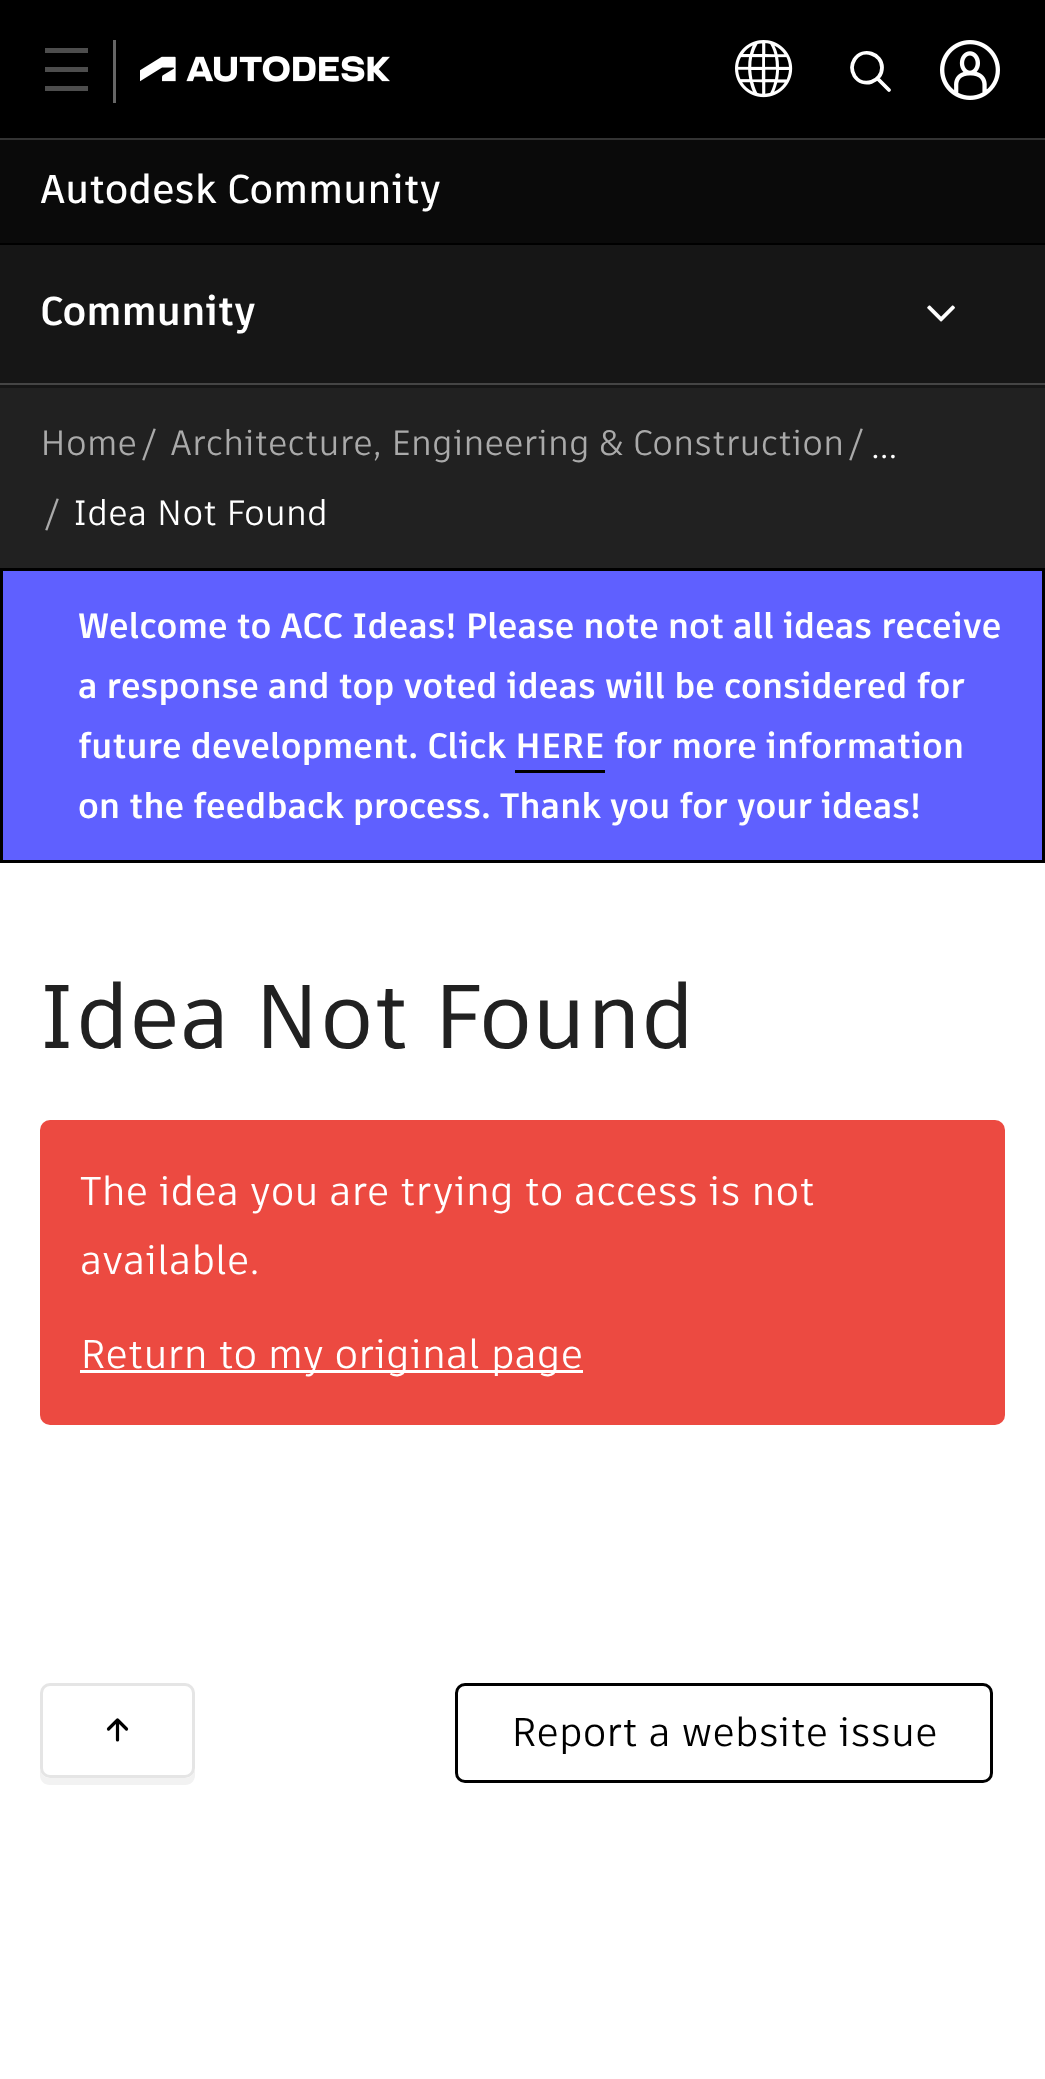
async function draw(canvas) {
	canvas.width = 1045;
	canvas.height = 2079;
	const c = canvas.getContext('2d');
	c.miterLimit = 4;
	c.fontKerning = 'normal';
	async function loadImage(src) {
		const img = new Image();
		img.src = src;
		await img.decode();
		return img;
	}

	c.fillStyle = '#fff';
	c.fillRect(0, 0, 1045, 2079);
	c.fillStyle = '#000';
	c.fillRect(0, 0, 1045, 245);
	c.fillStyle = '#0a0a0a';
	c.fillRect(0, 140, 1045, 103);
	c.save();
	c.beginPath();
	c.rect(45, 48, 43, 45);
	c.clip();
	c.fillStyle = '#4d4d4d';
	c.beginPath();
	c.moveTo(45, 48);
	c.lineTo(89, 48);
	c.lineTo(89, 53);
	c.lineTo(45, 53);
	c.closePath();
	c.moveTo(45, 67);
	c.lineTo(89, 67);
	c.lineTo(89, 72);
	c.lineTo(45, 72);
	c.closePath();
	c.moveTo(45, 86);
	c.lineTo(89, 86);
	c.lineTo(89, 91);
	c.lineTo(45, 91);
	c.closePath();
	c.fill();
	c.restore();
	c.fillStyle = '#666';
	c.fillRect(113, 40, 3, 63);
	c.drawImage(await loadImage('img1.png'), 140, 56, 250, 26);
	c.drawImage(await loadImage('img2.png'), 735, 40, 58, 58);
	c.beginPath();
	c.moveTo(877.5, 78.5);
	c.lineTo(889, 90);
	c.moveTo(882, 67.5);
	c.bezierCurveTo(882, 82, 863, 88.5, 854.5, 76);
	c.bezierCurveTo(853, 73.5, 852, 70.5, 852, 67.5);
	c.bezierCurveTo(852, 65, 853, 62, 854.5, 59.5);
	c.bezierCurveTo(863, 47, 882, 53.5, 882, 67.5);
	c.closePath();
	c.strokeStyle = '#fff';
	c.lineWidth = 3.8;
	c.lineCap = 'round';
	c.stroke();
	c.drawImage(await loadImage('img3.png'), 940, 40, 60, 60);
	c.fillStyle = '#333';
	c.fillRect(0, 138, 1045, 2);
	c.font = '600 40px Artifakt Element';
	c.fillStyle = '#fff';
	c.fillText('Autodesk Community', 40, 203);
	c.fillStyle = '#161616';
	c.fillRect(0, 245, 1045, 143);
	c.font = 'bold 40px Artifakt Element';
	c.fillStyle = '#fff';
	c.fillText('Community', 40, 325);
	c.drawImage(await loadImage('img4.png'), 927, 305, 28, 17);
	c.fillStyle = '#454545';
	c.fillRect(0, 383, 1045, 2);
	c.fillStyle = '#212121';
	c.fillRect(0, 388, 1045, 180);
	c.font = '35px Artifakt Element';
	c.fillStyle = '#aaa';
	for (const [text, x, y] of [
		['Home', 40, 455],
		['/', 142, 455],
		['Architecture, Engineering & Construction', 170, 455],
		['/', 849, 455],
	]) {
		c.fillText(text, x, y);
	}
	c.fillStyle = '#fff';
	c.fillText('...', 871, 458);
	c.fillStyle = '#aaa';
	c.fillText('/', 45, 525);
	c.fillStyle = '#fff';
	c.fillText('Idea Not Found', 73, 525);
	c.fillStyle = '#5f60ff';
	c.beginPath();
	c.rect(1.5, 569.5, 1042, 292);
	c.fill();
	c.strokeStyle = '#000';
	c.lineWidth = 3;
	c.stroke();
	c.font = 'bold 35px Artifakt Element';
	c.fillStyle = '#fff';
	for (const [text, x, y] of [
		['Welcome to ACC Ideas! Please note not all ideas receive', 78, 638],
		['a response and top voted ideas will be considered for', 78, 698],
		['future development. Click HERE for more information', 78, 758],
	]) {
		c.fillText(text, x, y);
	}
	c.fillStyle = '#000';
	c.fillRect(515, 770, 90, 3);
	c.fillStyle = '#fff';
	c.fillText('on the feedback process. Thank you for your ideas!', 78, 818);
	c.font = '500 90px Artifakt Element';
	c.fillStyle = '#212121';
	c.fillText('Idea Not Found', 38, 1048);
	c.fillStyle = '#ec4a41';
	c.beginPath();
	c.roundRect(40, 1120, 965, 305, 10);
	c.fill();
	c.font = '40px Artifakt Element';
	c.fillStyle = '#fff';
	c.fillText('The idea you are trying to access is not', 80, 1205);
	c.fillText('available.', 80, 1274);
	c.fillRect(80, 1370, 503, 3);
	c.fillText('Return to my original page', 80, 1368);
	c.fillStyle = '#f2f2f2';
	c.beginPath();
	c.moveTo(40, 1768);
	c.lineTo(40, 1775);
	c.bezierCurveTo(40, 1781, 44, 1785, 50, 1785);
	c.lineTo(185, 1785);
	c.bezierCurveTo(191, 1785, 195, 1781, 195, 1775);
	c.lineTo(195, 1768);
	c.bezierCurveTo(195, 1773, 191, 1778, 185, 1778);
	c.lineTo(50, 1778);
	c.bezierCurveTo(44, 1778, 40, 1773, 40, 1768);
	c.closePath();
	c.fill();
	c.beginPath();
	c.roundRect(41.5, 1684.5, 152, 92, 8.5);
	c.strokeStyle = '#e5e5e5';
	c.stroke();
	c.beginPath();
	c.moveTo(126.5, 1729);
	c.lineTo(117.5, 1720);
	c.moveTo(117.5, 1720);
	c.lineTo(108.5, 1729);
	c.moveTo(117.5, 1720);
	c.lineTo(117.5, 1740);
	c.strokeStyle = '#000';
	c.lineWidth = 3.2;
	c.lineJoin = 'round';
	c.stroke();
	c.beginPath();
	c.roundRect(456.5, 1684.5, 535, 97, 8.5);
	c.lineWidth = 3;
	c.lineJoin = 'miter';
	c.stroke();
	c.fillStyle = '#000';
	c.fillText('Report a website issue', 511, 1746);
}

draw(document.querySelector('canvas'));
